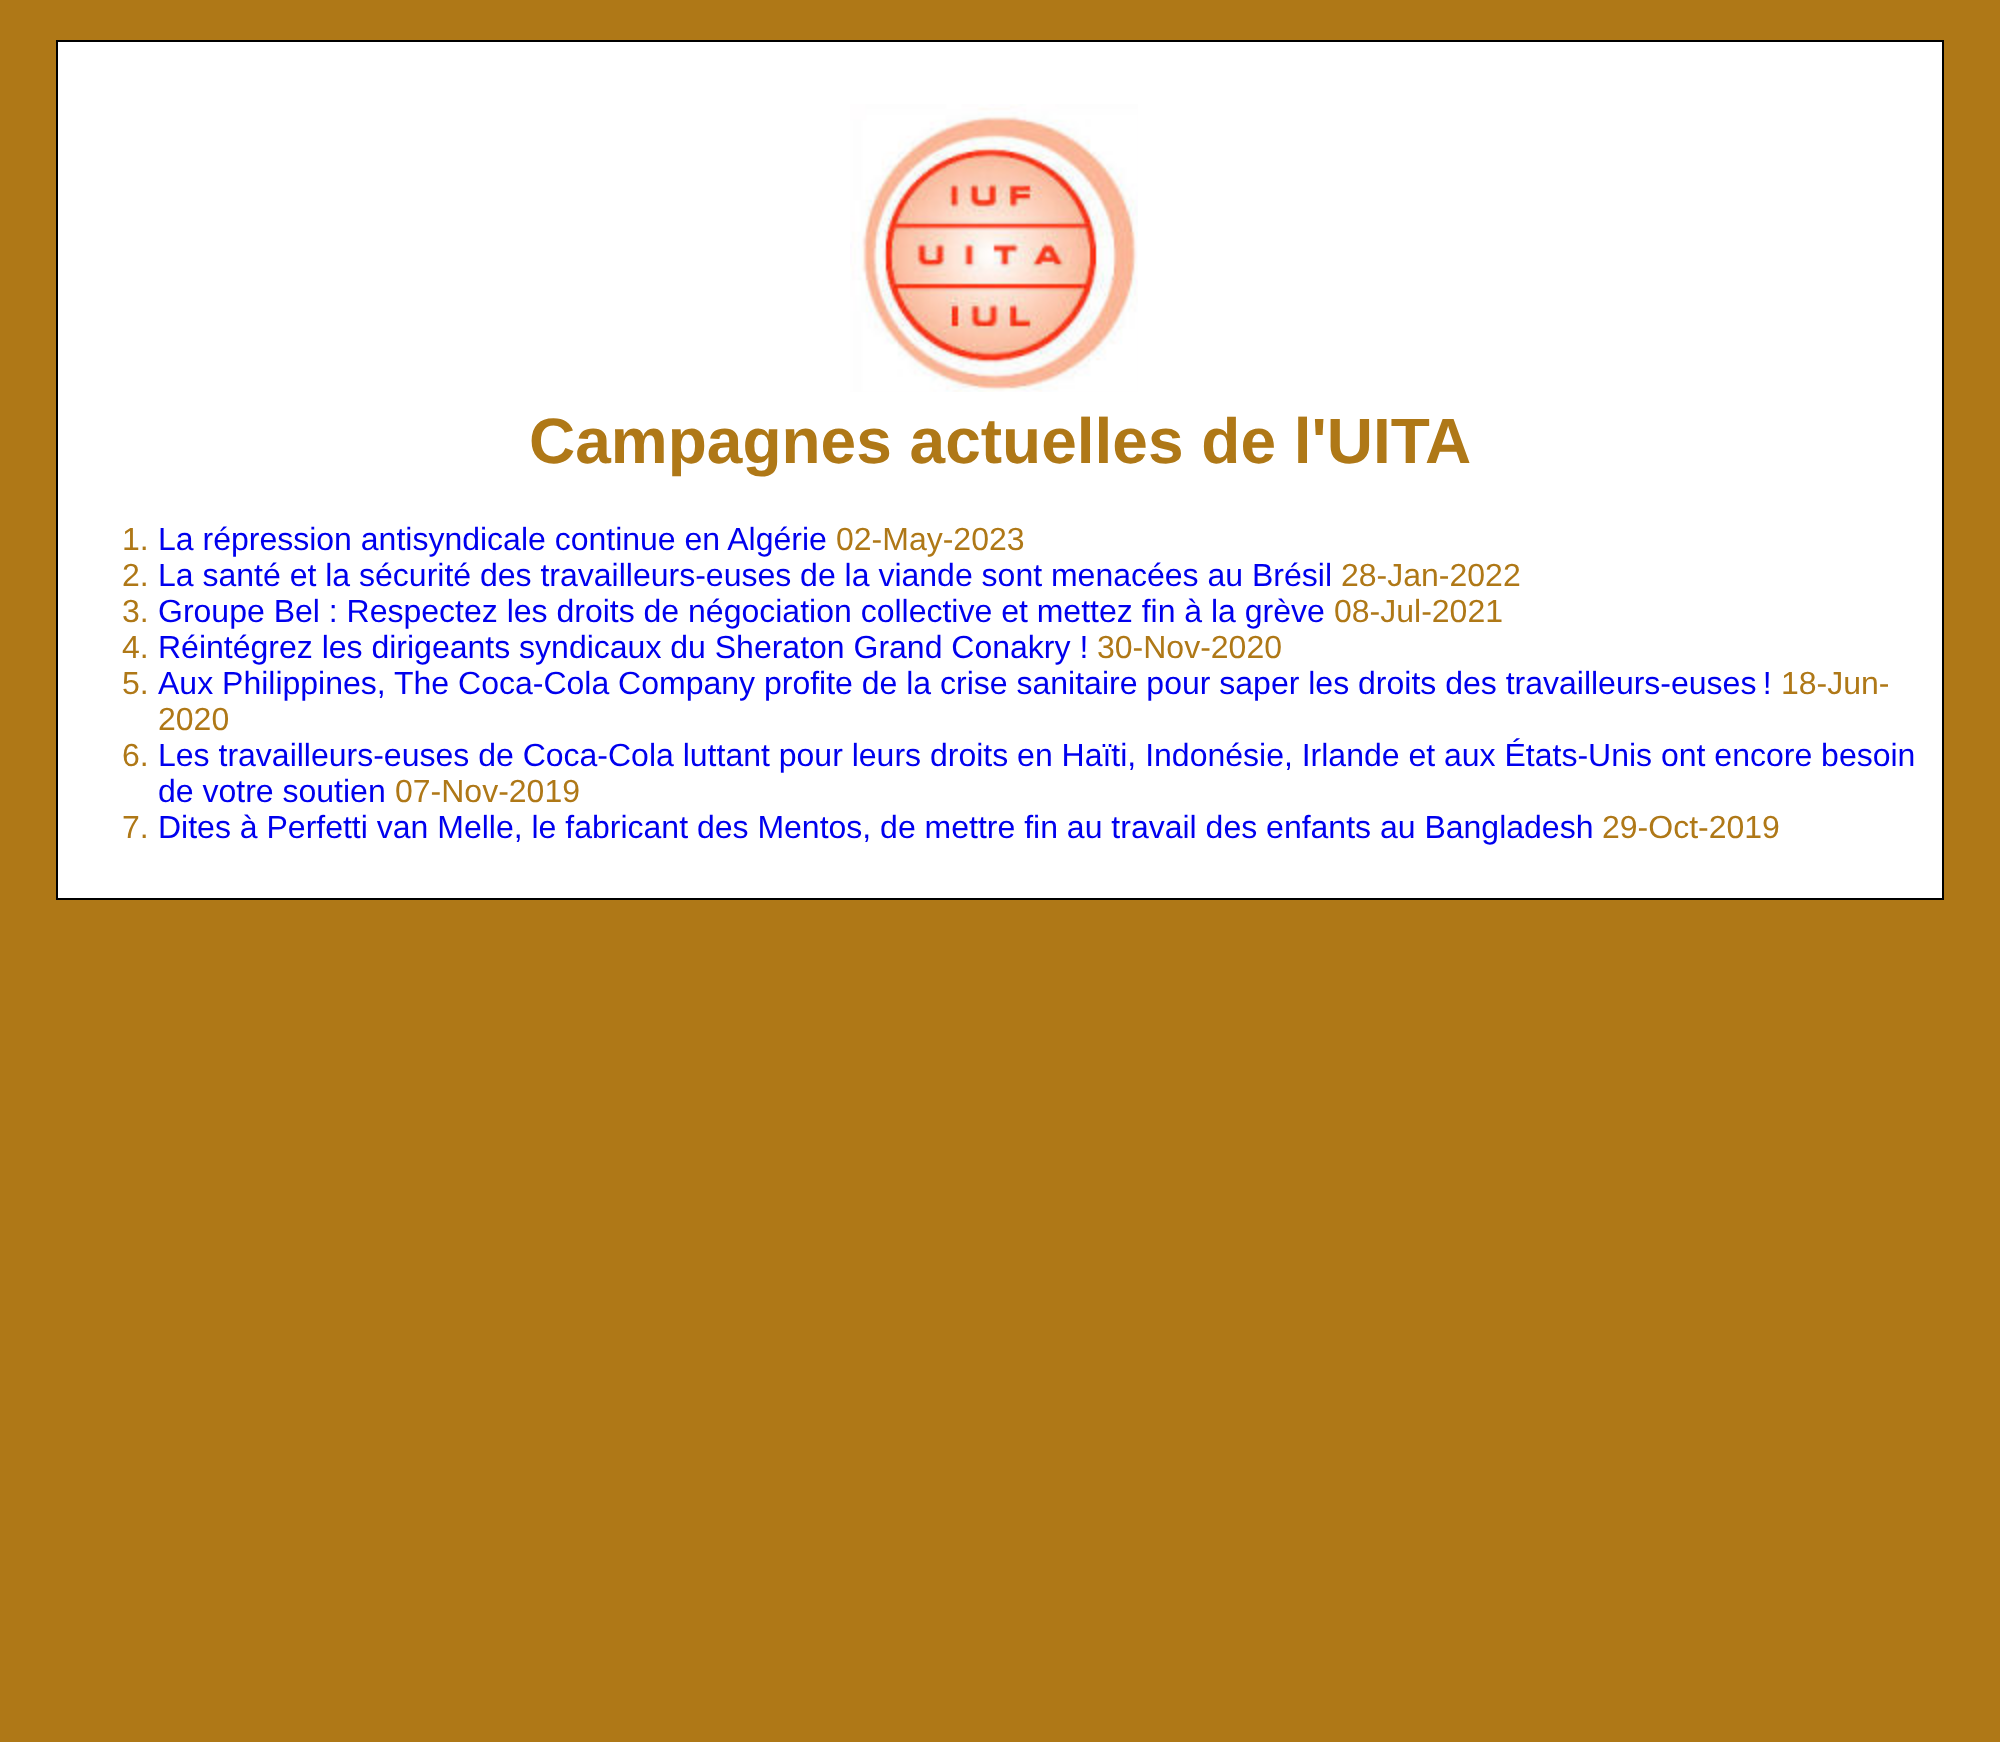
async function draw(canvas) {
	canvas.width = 2000;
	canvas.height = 1742;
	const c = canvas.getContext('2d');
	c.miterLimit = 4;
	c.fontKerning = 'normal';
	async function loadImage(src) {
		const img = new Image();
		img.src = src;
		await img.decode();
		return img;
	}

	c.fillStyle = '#af7817';
	c.fillRect(0, 0, 2000, 1742);
	c.fillStyle = '#fff';
	c.beginPath();
	c.rect(57, 41, 1886, 858);
	c.fill();
	c.strokeStyle = '#000';
	c.lineWidth = 2;
	c.stroke();
	c.drawImage(await loadImage('img1.png'), 850, 104, 288, 288);
	c.font = 'bold 64px Liberation Sans';
	c.fillStyle = '#af7817';
	c.fillText('Campagnes actuelles de l\'UITA', 529, 463);
	c.font = '32px Liberation Sans';
	c.fillText('1.', 122, 550);
	c.fillStyle = '#00e';
	c.fillText('La répression antisyndicale continue en Algérie', 158, 550);
	c.fillStyle = '#af7817';
	c.fillText('02-May-2023', 836, 550);
	c.fillText('2.', 122, 586);
	c.fillStyle = '#00e';
	c.fillText('La santé et la sécurité des travailleurs-euses de la viande sont menacées au Brésil', 158, 586);
	c.fillStyle = '#af7817';
	c.fillText('28-Jan-2022', 1341, 586);
	c.fillText('3.', 122, 622);
	c.fillStyle = '#00e';
	c.fillText('Groupe Bel : Respectez les droits de négociation collective et mettez fin à la grève', 158, 622);
	c.fillStyle = '#af7817';
	c.fillText('08-Jul-2021', 1334, 622);
	c.fillText('4.', 122, 658);
	c.fillStyle = '#00e';
	c.fillText('Réintégrez les dirigeants syndicaux du Sheraton Grand Conakry !', 158, 658);
	c.fillStyle = '#af7817';
	c.fillText('30-Nov-2020', 1097, 658);
	c.fillText('5.', 122, 694);
	c.fillStyle = '#00e';
	c.fillText('Aux Philippines, The Coca-Cola Company profite de la crise sanitaire pour saper les droits des travailleurs-euses !', 158, 694);
	c.fillStyle = '#af7817';
	for (const [text, x, y] of [
		['18-Jun-', 1781, 694],
		['2020', 158, 730],
		['6.', 122, 766],
	]) {
		c.fillText(text, x, y);
	}
	c.fillStyle = '#00e';
	c.fillText('Les travailleurs-euses de Coca-Cola luttant pour leurs droits en Haïti, Indonésie, Irlande et aux États-Unis ont encore besoin', 158, 766);
	c.fillText('de votre soutien', 158, 802);
	c.fillStyle = '#af7817';
	c.fillText('07-Nov-2019', 395, 802);
	c.fillText('7.', 122, 838);
	c.fillStyle = '#00e';
	c.fillText('Dites à Perfetti van Melle, le fabricant des Mentos, de mettre fin au travail des enfants au Bangladesh', 158, 838);
	c.fillStyle = '#af7817';
	c.fillText('29-Oct-2019', 1602, 838);
}

draw(document.querySelector('canvas'));
